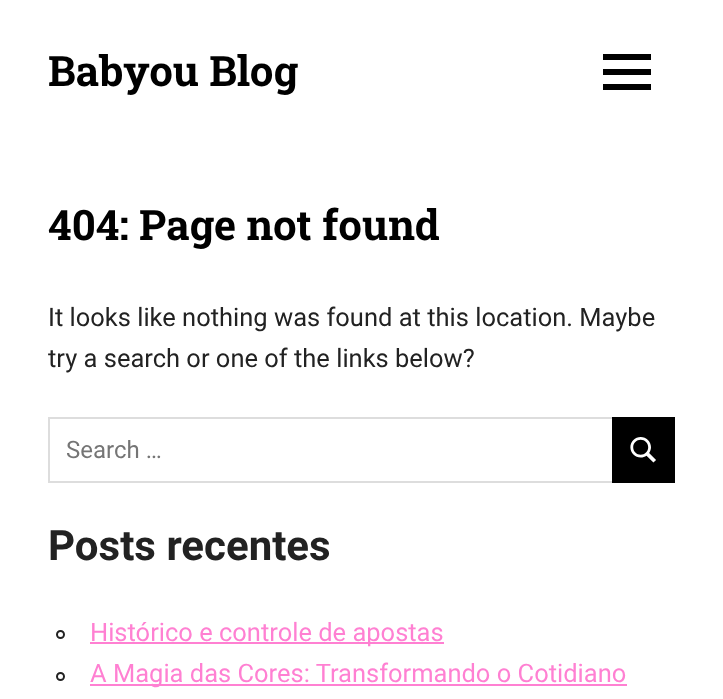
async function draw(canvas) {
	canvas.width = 723;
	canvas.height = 699;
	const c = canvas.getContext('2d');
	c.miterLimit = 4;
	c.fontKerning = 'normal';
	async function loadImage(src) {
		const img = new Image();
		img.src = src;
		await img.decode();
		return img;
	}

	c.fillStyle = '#fff';
	c.fillRect(0, 0, 723, 699);
	c.font = 'bold 42px Roboto Slab';
	c.fillStyle = '#000';
	c.fillText('Babyou Blog', 48, 86);
	c.drawImage(await loadImage('img1.png'), 603, 54, 48, 36);
	c.fillText('404: Page not found', 48, 240);
	c.font = '25.5px Roboto';
	c.fillStyle = '#222';
	c.fillText('It looks like nothing was found at this location. Maybe', 48, 326);
	c.fillText('try a search or one of the links below?', 48, 367);
	c.strokeStyle = '#ddd';
	c.lineWidth = 2;
	c.strokeRect(49, 418, 564, 64);
	c.font = '24px Roboto';
	c.fillStyle = '#757575';
	c.fillText('Search …', 66, 458);
	c.fillStyle = '#000';
	c.fillRect(612, 417, 63, 66);
	c.drawImage(await loadImage('img2.png'), 630, 437, 26, 26);
	c.font = 'bold 42px Roboto';
	c.fillStyle = '#222';
	c.fillText('Posts recentes', 48, 560);
	c.beginPath();
	c.arc(60.5, 634.5, 3.5, 0, 2 * Math.PI);
	c.strokeStyle = '#222';
	c.stroke();
	c.fillStyle = '#ff80d2';
	c.fillRect(90, 642, 354, 2);
	c.font = '25.5px Roboto';
	c.fillText('Histórico e controle de apostas', 90, 641);
	c.beginPath();
	c.arc(60.5, 676.5, 3.5, 0, 2 * Math.PI);
	c.stroke();
	c.fillRect(90, 684, 537, 2);
	c.fillText('A Magia das Cores: Transformando o Cotidiano', 90, 682);
}

draw(document.querySelector('canvas'));
